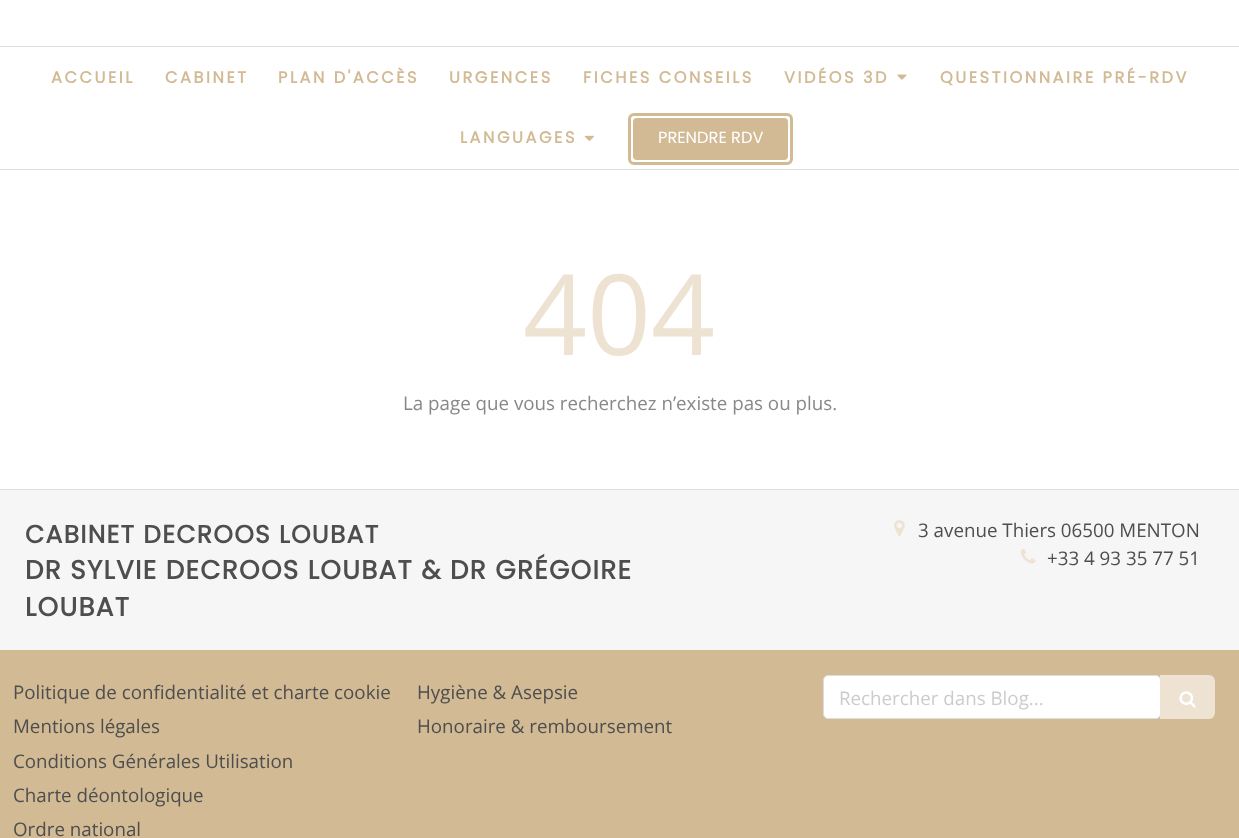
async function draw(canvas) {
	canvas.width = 1239;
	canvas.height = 838;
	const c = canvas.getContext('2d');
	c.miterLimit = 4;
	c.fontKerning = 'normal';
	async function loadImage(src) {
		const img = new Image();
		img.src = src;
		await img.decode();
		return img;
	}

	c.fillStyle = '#fff';
	c.fillRect(0, 0, 1239, 838);
	c.fillStyle = '#ddd';
	c.fillRect(0, 46, 1239, 1);
	c.fillRect(0, 169, 1239, 1);
	c.letterSpacing = '2.5px';
	c.font = 'bold 16.25px Poppins';
	c.fillStyle = '#d2ba94';
	for (const [text, x, y] of [
		['ACCUEIL', 51, 83],
		['CABINET', 165, 83],
		['PLAN D\'ACCÈS', 278, 83],
		['URGENCES', 449, 83],
		['FICHES CONSEILS', 583, 83],
		['VIDÉOS 3D', 784, 83],
	]) {
		c.fillText(text, x, y);
	}
	c.drawImage(await loadImage('img1.png'), 897, 74, 10, 6);
	c.fillText('QUESTIONNAIRE PRÉ-RDV', 940, 83);
	c.fillText('LANGUAGES', 460, 143);
	c.drawImage(await loadImage('img2.png'), 584, 135, 10, 6);
	c.beginPath();
	c.roundRect(629.5, 114.5, 162, 49, 4.5);
	c.strokeStyle = '#d2ba94';
	c.lineWidth = 3;
	c.stroke();
	c.beginPath();
	c.roundRect(633, 118, 155, 42, 4);
	c.fill();
	c.letterSpacing = '0px';
	c.font = '16.25px Poppins';
	c.fillStyle = '#fff';
	c.fillText('PRENDRE RDV', 658, 143);
	c.font = '112px Open Sans';
	c.fillStyle = '#eee3d3';
	c.fillText('404', 523, 355);
	c.font = '18.75px Open Sans';
	c.fillStyle = '#888';
	c.fillText('La page que vous recherchez n’existe pas ou plus.', 403, 410);
	c.fillStyle = '#ddd';
	c.fillRect(0, 489, 1239, 1);
	c.fillStyle = '#f6f6f6';
	c.fillRect(0, 490, 1239, 160);
	c.letterSpacing = '1.25px';
	c.font = 'bold 25px Poppins';
	c.fillStyle = '#4e4e4e';
	c.fillText('CABINET DECROOS LOUBAT', 25, 543);
	c.font = 'bold 26.25px Poppins';
	c.fillText('DR SYLVIE DECROOS LOUBAT & DR GRÉGOIRE', 25, 579);
	c.fillText('LOUBAT', 25, 616);
	c.drawImage(await loadImage('img3.png'), 894, 520, 11, 16);
	c.letterSpacing = '0px';
	c.font = '18.75px Open Sans';
	c.fillText('3 avenue Thiers 06500 MENTON', 918, 537);
	c.drawImage(await loadImage('img4.png'), 1020, 549, 16, 15);
	c.fillText('+33 4 93 35 77 51', 1047, 565);
	c.fillStyle = '#d2ba94';
	c.fillRect(0, 650, 1239, 188);
	c.fillStyle = '#4e4e4e';
	for (const [text, x, y] of [
		['Politique de confidentialité et charte cookie', 13, 699],
		['Mentions légales', 13, 733],
		['Conditions Générales Utilisation', 13, 768],
		['Charte déontologique', 13, 802],
		['Ordre national', 13, 836],
		['Hygiène & Asepsie', 417, 699],
		['Honoraire & remboursement', 417, 733],
	]) {
		c.fillText(text, x, y);
	}
	c.fillStyle = '#fff';
	c.beginPath();
	c.roundRect(823.5, 675.5, 337, 43, 4.5);
	c.fill();
	c.strokeStyle = '#ddd';
	c.lineWidth = 1;
	c.stroke();
	c.fillStyle = '#ccc';
	c.fillText('Rechercher dans Blog...', 839, 705);
	c.fillStyle = '#eee3d3';
	c.beginPath();
	c.roundRect(1160, 675, 55, 44, [0, 6, 6, 0]);
	c.fill();
	c.drawImage(await loadImage('img5.png'), 1179, 691, 17, 17);
}

draw(document.querySelector('canvas'));
